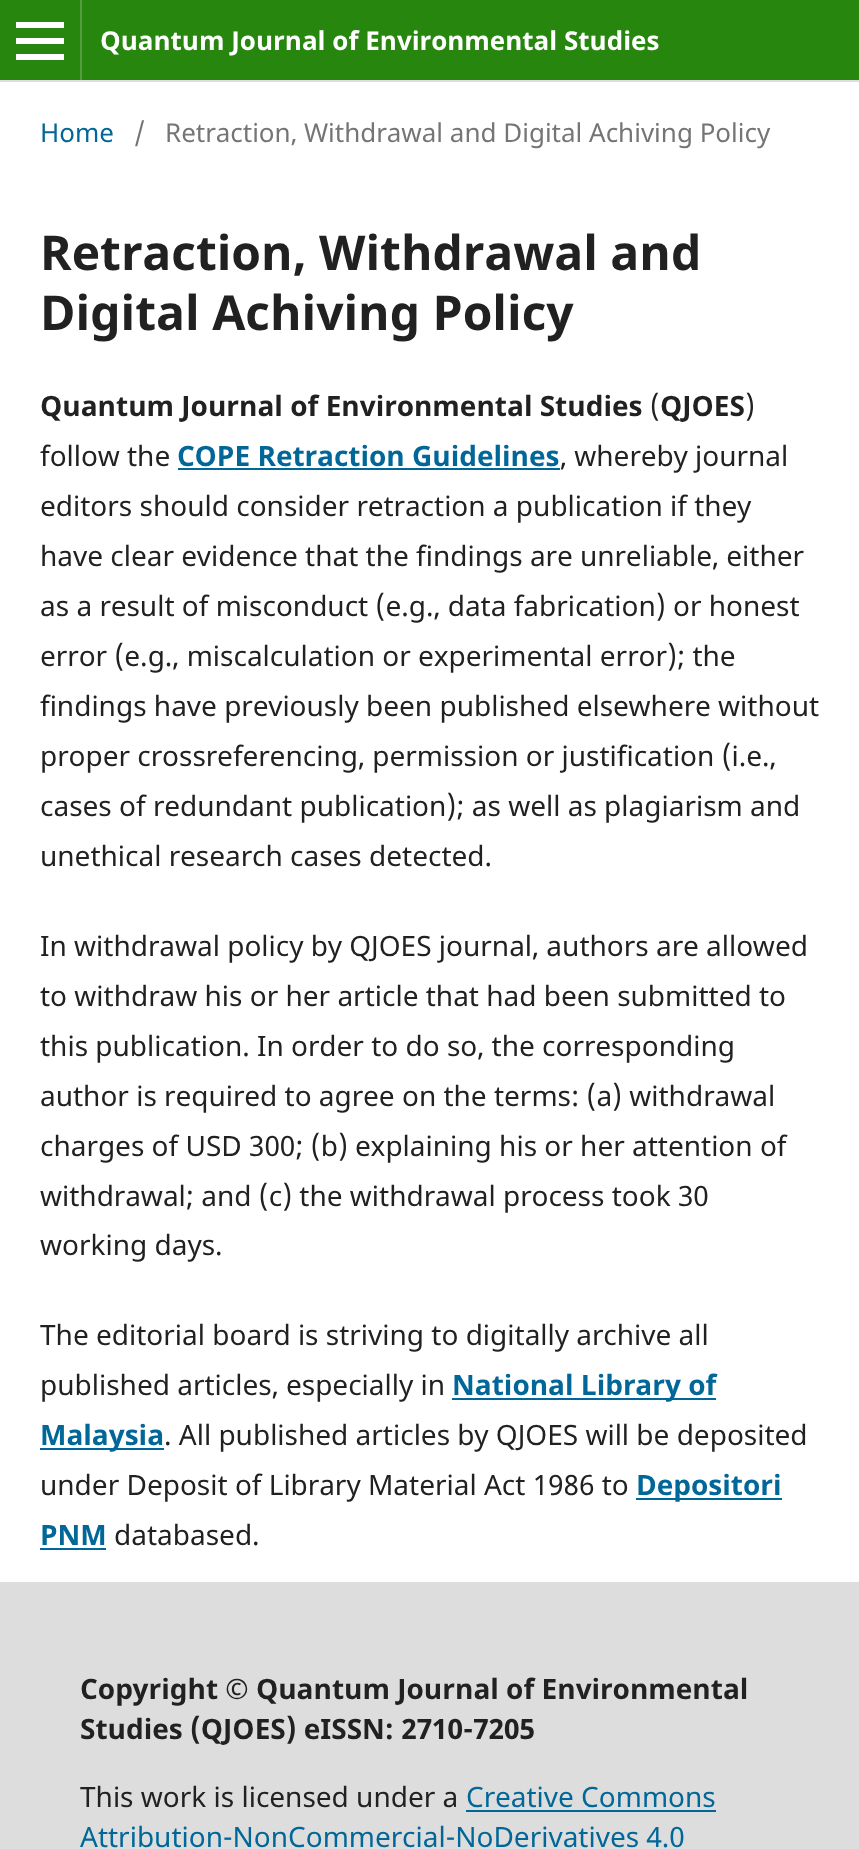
async function draw(canvas) {
	canvas.width = 859;
	canvas.height = 1849;
	const c = canvas.getContext('2d');
	c.miterLimit = 4;
	c.fontKerning = 'normal';

	c.fillStyle = '#fff';
	c.fillRect(0, 0, 859, 1849);
	for (const [x, y, w, h, color] of [
		[0, 0, 859, 80, '#27860d'],
		[0, 80, 859, 2, '#ddd'],
		[80, 0, 2, 80, '#529e3d'],
		[16, 54, 48, 6, '#fff'],
		[16, 22, 48, 6, '#fff'],
		[16, 38, 48, 6, '#fff'],
	]) {
		c.fillStyle = color;
		c.fillRect(x, y, w, h);
	}
	c.font = 'bold 26px Noto Sans';
	c.fillText('Quantum Journal of Environmental Studies', 100, 50);
	c.font = '26px Noto Sans';
	c.fillStyle = '#006798';
	c.fillText('Home', 40, 142);
	c.fillStyle = '#757575';
	c.fillText('/', 134, 142);
	c.fillText('Retraction, Withdrawal and Digital Achiving Policy', 165, 142);
	c.font = 'bold 48px Noto Sans';
	c.fillStyle = '#212121';
	c.fillText('Retraction, Withdrawal and', 40, 270);
	c.fillText('Digital Achiving Policy', 40, 330);
	c.font = 'bold 28px Noto Sans';
	c.fillText('Quantum Journal of Environmental Studies', 40, 416);
	c.font = '28px Noto Sans';
	c.fillText('(', 650, 416);
	c.font = 'bold 28px Noto Sans';
	c.fillText('QJOES', 660, 416);
	c.font = '28px Noto Sans';
	c.fillText(')', 745, 416);
	c.fillText('follow the', 40, 466);
	c.font = 'bold 28px Noto Sans';
	c.fillStyle = '#006798';
	c.fillText('COPE Retraction Guidelines', 177, 466);
	c.fillRect(178, 468, 382, 2);
	c.font = '28px Noto Sans';
	c.fillStyle = '#212121';
	for (const [text, x, y] of [
		[', whereby journal', 560, 466],
		['editors should consider retraction a publication if they', 40, 516],
		['have clear evidence that the findings are unreliable, either', 40, 566],
		['as a result of misconduct (e.g., data fabrication) or honest', 40, 616],
		['error (e.g., miscalculation or experimental error); the', 40, 666],
		['findings have previously been published elsewhere without', 40, 716],
		['proper crossreferencing, permission or justification (i.e.,', 40, 766],
		['cases of redundant publication); as well as plagiarism and', 40, 816],
		['unethical research cases detected.', 40, 866],
		['In withdrawal policy by QJOES journal, authors are allowed', 40, 956],
		['to withdraw his or her article that had been submitted to', 40, 1006],
		['this publication. In order to do so, the corresponding', 40, 1056],
		['author is required to agree on the terms: (a) withdrawal', 40, 1106],
		['charges of USD 300; (b) explaining his or her attention of', 40, 1156],
		['withdrawal; and (c) the withdrawal process took 30', 40, 1206],
		['working days.', 40, 1255],
		['The editorial board is striving to digitally archive all', 40, 1345],
		['published articles, especially in', 40, 1395],
	]) {
		c.fillText(text, x, y);
	}
	c.fillStyle = '#006798';
	c.fillRect(452, 1398, 264, 2);
	c.font = 'bold 28px Noto Sans';
	c.fillText('National Library of', 452, 1395);
	c.fillRect(40, 1448, 124, 2);
	c.fillText('Malaysia', 40, 1445);
	c.font = '28px Noto Sans';
	c.fillStyle = '#212121';
	c.fillText('. All published articles by QJOES will be deposited', 164, 1445);
	c.fillText('under Deposit of Library Material Act 1986 to', 40, 1495);
	c.fillStyle = '#006798';
	c.fillRect(636, 1498, 146, 2);
	c.font = 'bold 28px Noto Sans';
	c.fillText('Depositori', 636, 1495);
	c.fillText('PNM', 40, 1545);
	c.fillRect(40, 1548, 66, 2);
	c.font = '28px Noto Sans';
	c.fillStyle = '#212121';
	c.fillText('databased.', 114, 1545);
	c.fillStyle = '#ddd';
	c.fillRect(0, 1582, 859, 267);
	c.font = 'bold 28px Noto Sans';
	c.fillStyle = '#212121';
	c.fillText('Copyright © Quantum Journal of Environmental', 80, 1699);
	c.fillText('Studies (QJOES) eISSN: 2710-7205', 80, 1739);
	c.font = '28px Noto Sans';
	c.fillText('This work is licensed under a', 80, 1807);
	c.fillStyle = '#006798';
	c.fillText('Creative Commons', 466, 1807);
	c.fillRect(466, 1810, 250, 2);
	c.fillText('Attribution-NonCommercial-NoDerivatives 4.0', 80, 1847);
}

draw(document.querySelector('canvas'));
